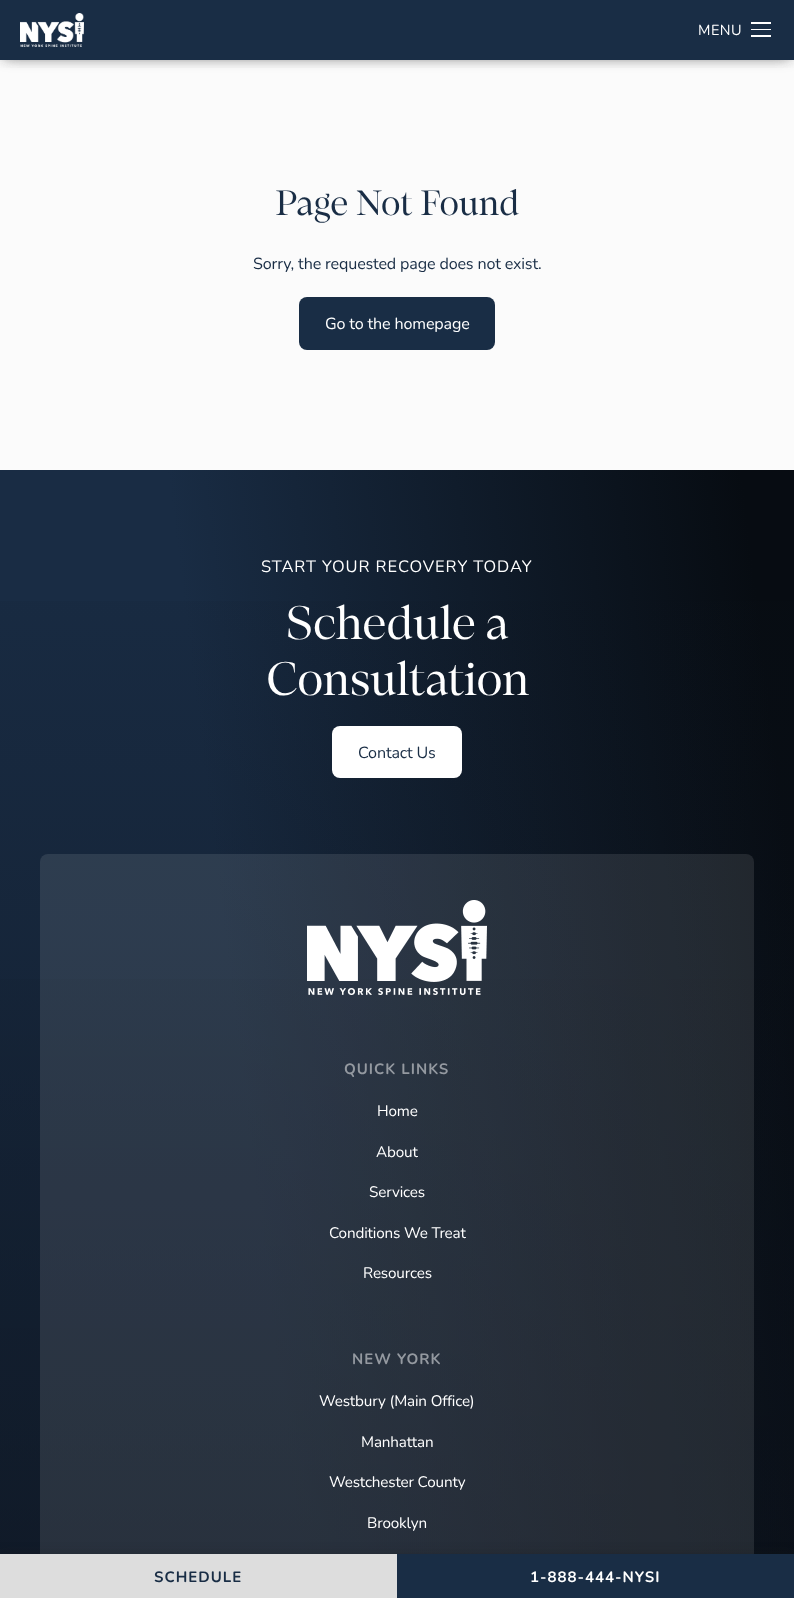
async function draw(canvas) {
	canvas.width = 794;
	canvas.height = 1598;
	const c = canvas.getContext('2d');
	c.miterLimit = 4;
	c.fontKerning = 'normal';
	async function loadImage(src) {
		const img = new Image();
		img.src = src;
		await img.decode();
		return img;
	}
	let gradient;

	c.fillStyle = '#fff';
	c.fillRect(0, 0, 794, 1598);
	c.fillStyle = '#fbfbfb';
	c.fillRect(0, 60, 794, 410);
	c.fillStyle = '#14141466';
	c.filter = 'blur(7.5px)';
	c.beginPath();
	c.rect(4, 4, 786, 52);
	c.fill();
	c.filter = 'none';
	c.fillStyle = '#192d45';
	c.fillRect(0, 0, 794, 60);
	c.save();
	c.beginPath();
	c.rect(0, 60, 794, 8);
	c.clip();
	c.fillStyle = '#14141466';
	c.filter = 'blur(7.5px)';
	c.beginPath();
	c.rect(4, 4, 786, 52);
	c.fill();
	c.filter = 'none';
	c.restore();
	c.drawImage(await loadImage('img1.png'), 20, 13, 64, 34);
	c.fillStyle = '#fff';
	c.fillRect(751, 22, 20, 2);
	c.fillRect(751, 29, 20, 1);
	c.letterSpacing = '0.5px';
	c.font = '14.5px Nunito';
	c.fillText('MENU', 698, 35);
	c.fillRect(751, 35, 20, 2);
	c.letterSpacing = '-0.15px';
	c.font = '35.5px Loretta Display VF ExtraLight';
	c.fillStyle = '#192d45';
	c.fillText('Page Not Found', 275, 215);
	c.font = '16.1px Nunito';
	c.fillText('Sorry, the requested page does not exist.', 253, 269);
	c.beginPath();
	c.roundRect(299, 297, 196, 53, 8);
	c.fill();
	c.fillStyle = '#fff';
	c.fillText('Go to the homepage', 325, 329);
	gradient = c.createLinearGradient(-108, 1484, 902, 1360);
	gradient.addColorStop(0.39, '#192c44');
	gradient.addColorStop(0.95, '#070c12');
	c.fillStyle = gradient;
	c.fillRect(0, 470, 794, 1084);
	gradient = c.createLinearGradient(397, 470, 397, 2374);
	gradient.addColorStop(0.19, '#00000000');
	gradient.addColorStop(1, '#00000063');
	c.fillStyle = gradient;
	c.fillRect(0, 979, 794, 575);
	c.letterSpacing = '0.9px';
	c.font = '16.5px Nunito';
	c.fillStyle = '#fff';
	c.fillText('START YOUR RECOVERY TODAY', 261, 572);
	gradient = c.createLinearGradient(397, 470, 397, 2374);
	gradient.addColorStop(0, '#0d131d00');
	gradient.addColorStop(1, '#0d131d');
	c.fillStyle = gradient;
	c.fillRect(0, 601, 794, 953);
	c.letterSpacing = '-0.15px';
	c.font = '47.25px Loretta Display VF ExtraLight';
	c.fillStyle = '#fff';
	c.fillText('Schedule a', 286, 639);
	c.fillText('Consultation', 266, 695);
	c.beginPath();
	c.roundRect(332, 726, 130, 52, 8);
	c.fill();
	c.font = '16.1px Nunito';
	c.fillStyle = '#192d45';
	c.fillText('Contact Us', 358, 758);
	c.fillStyle = '#ffffff1a';
	c.beginPath();
	c.roundRect(40, 854, 714, 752, 8);
	c.fill();
	c.drawImage(await loadImage('img2.png'), 307, 900, 180, 95);
	c.letterSpacing = '1px';
	c.font = 'bold 15px Nunito';
	c.fillStyle = '#9499a0';
	c.fillText('QUICK LINKS', 344, 1074);
	c.letterSpacing = '-0.15px';
	c.font = '15.25px Nunito';
	c.fillStyle = '#fff';
	for (const [text, x, y] of [
		['Home', 377, 1116],
		['About', 376, 1157],
		['Services', 369, 1197],
		['Conditions We Treat', 329, 1238],
		['Resources', 363, 1278],
	]) {
		c.fillText(text, x, y);
	}
	c.letterSpacing = '1px';
	c.font = 'bold 15px Nunito';
	c.fillStyle = '#9499a0';
	c.fillText('NEW YORK', 352, 1364);
	c.letterSpacing = '-0.15px';
	c.font = '15.25px Nunito';
	c.fillStyle = '#fff';
	for (const [text, x, y] of [
		['Westbury (Main Office)', 319, 1406],
		['Manhattan', 361, 1447],
		['Westchester County', 329, 1487],
		['Brooklyn', 367, 1528],
	]) {
		c.fillText(text, x, y);
	}
	c.fillStyle = '#14141440';
	c.filter = 'blur(6px)';
	c.beginPath();
	c.rect(0, 1554, 794, 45);
	c.fill();
	c.filter = 'none';
	c.fillStyle = '#ddd';
	c.fillRect(0, 1554, 397, 44);
	c.letterSpacing = '1px';
	c.font = 'bold 15px Nunito';
	c.fillStyle = '#192d45';
	c.fillText('SCHEDULE', 154, 1582);
	c.fillRect(397, 1554, 397, 44);
	c.fillStyle = '#fff';
	c.fillText('1-888-444-NYSI', 530, 1582);
}

draw(document.querySelector('canvas'));
